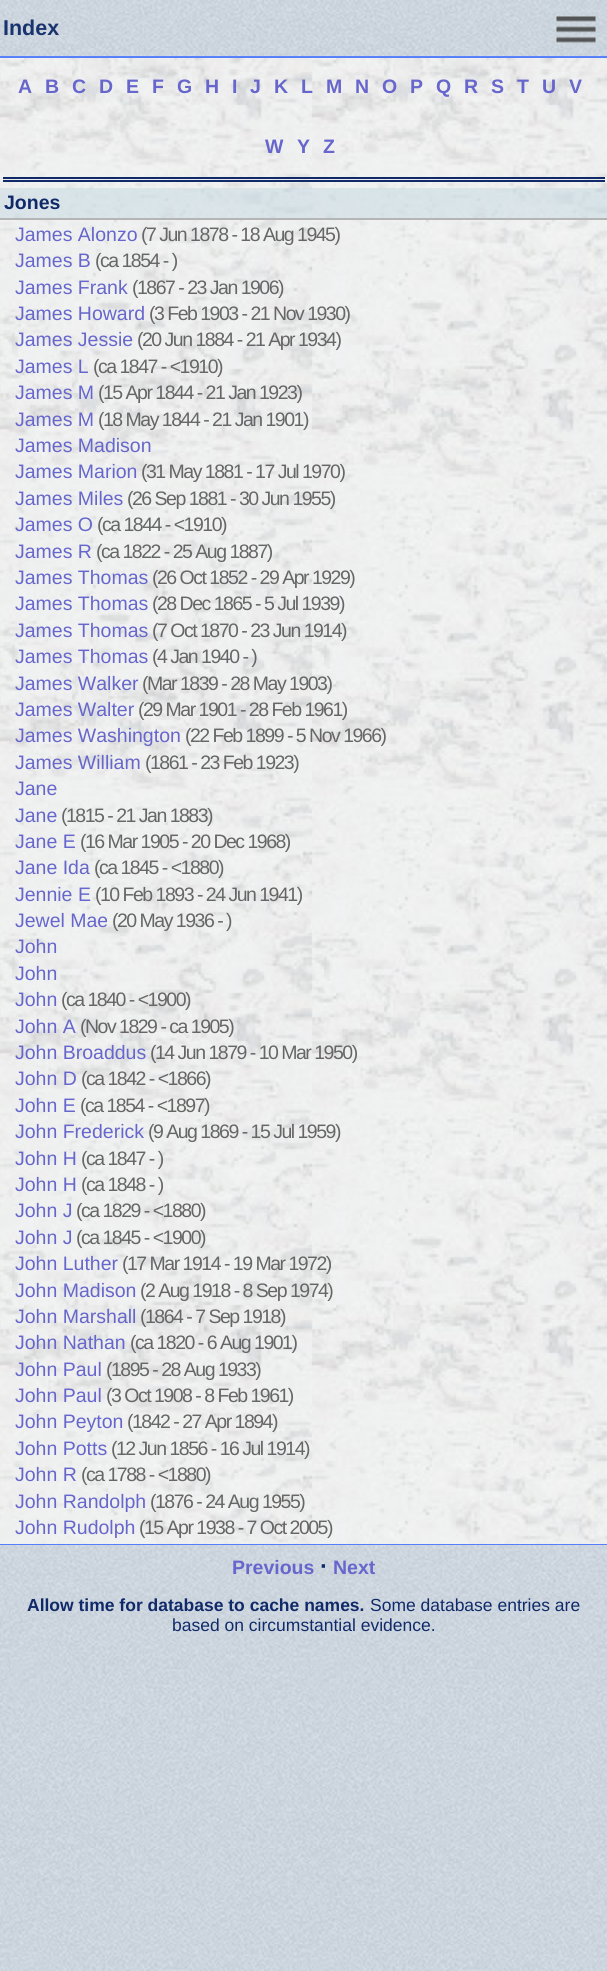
#include <cairo.h>
#include <math.h>
#include <stddef.h>


static void rgb(cairo_t *cr, int r, int g, int b)
{
	cairo_set_source_rgb(cr, r / 255.0, g / 255.0, b / 255.0);
}

static void face(cairo_t *cr, const char *family, double size, int italic, int bold)
{
	cairo_select_font_face(cr, family, italic ? CAIRO_FONT_SLANT_ITALIC : CAIRO_FONT_SLANT_NORMAL,
		bold ? CAIRO_FONT_WEIGHT_BOLD : CAIRO_FONT_WEIGHT_NORMAL);
	cairo_set_font_size(cr, size);
}

static void label(cairo_t *cr, double x, double y, const char *s)
{
	cairo_move_to(cr, x, y);
	cairo_show_text(cr, s);
}

static void tracked(cairo_t *cr, double x, double y, const char *s, double letter, double word)
{
	cairo_move_to(cr, x, y);
	while (*s) {
		char ch[5] = {0};
		int n = 0;
		do ch[n++] = *s++; while ((*s & 0xC0) == 0x80);
		cairo_show_text(cr, ch);
		cairo_rel_move_to(cr, letter + word * (*ch == ' '), 0);
	}
}

static void rect(cairo_t *cr, double x, double y, double w, double h)
{
	cairo_rectangle(cr, x, y, w, h);
	cairo_fill(cr);
}

static void image(cairo_t *cr, const char *path, double x, double y, double w, double h)
{
	cairo_surface_t *image = cairo_image_surface_create_from_png(path);
	cairo_save(cr);
	cairo_set_source_surface(cr, image, x, y);
	cairo_rectangle(cr, x, y, w, h);
	cairo_fill(cr);
	cairo_restore(cr);
	cairo_surface_destroy(image);
}

static void draw(cairo_t *cr) {
	rgb(cr, 255, 255, 255);
	cairo_paint(cr);
	image(cr, "image0.png", 0, 0, 607, 1971);
	image(cr, "image4.png", 0, 55, 607, 1489);
	rgb(cr, 86, 126, 252);
	rect(cr, 0, 56, 607, 2);
	image(cr, "image1.png", 0, 55, 607, 2);
	cairo_set_source_rgba(cr, 0.337, 0.494, 0.988, 0.95);
	rect(cr, 0, 56, 607, 1);
	face(cr, "Liberation Sans", 21.5, 0, 1);
	rgb(cr, 25, 51, 111);
	label(cr, 3, 35, "Index");
	image(cr, "image2.png", 541, 0, 66, 53);
	image(cr, "image3.png", 556, 16, 40, 27);
	rgb(cr, 86, 126, 252);
	rect(cr, 0, 1544, 607, 1);
	rgb(cr, 16, 42, 105);
	rect(cr, 3, 177, 602, 2);
	rect(cr, 3, 180, 602, 2);
	face(cr, "Liberation Sans", 19.5, 0, 1);
	rgb(cr, 102, 102, 204);
	tracked(cr, 18, 93, "A", 8, 0);
	tracked(cr, 45, 93, "B", 8, 0);
	tracked(cr, 72, 93, "C", 8, 0);
	tracked(cr, 99, 93, "D", 8, 0);
	tracked(cr, 126, 93, "E", 8, 0);
	tracked(cr, 152, 93, "F", 8, 0);
	tracked(cr, 177, 93, "G", 8, 0);
	tracked(cr, 205, 93, "H", 8, 0);
	tracked(cr, 232, 93, "I", 8, 0);
	tracked(cr, 250, 93, "J", 8, 0);
	tracked(cr, 274, 93, "K", 8, 0);
	tracked(cr, 301, 93, "L", 8, 0);
	tracked(cr, 326, 93, "M", 8, 0);
	tracked(cr, 355, 93, "N", 8, 0);
	tracked(cr, 382, 93, "O", 8, 0);
	tracked(cr, 410, 93, "P", 8, 0);
	tracked(cr, 436, 93, "Q", 8, 0);
	tracked(cr, 464, 93, "R", 8, 0);
	tracked(cr, 491, 93, "S", 8, 0);
	tracked(cr, 517, 93, "T", 8, 0);
	tracked(cr, 542, 93, "U", 8, 0);
	tracked(cr, 569, 93, "V", 8, 0);
	tracked(cr, 265, 153, "W", 8, 0);
	tracked(cr, 297, 153, "Y", 8, 0);
	tracked(cr, 323, 153, "Z", 8, 0);
	cairo_set_source_rgba(cr, 0.769, 0.851, 0.886, 0.5);
	rect(cr, 0, 188, 607, 30);
	rgb(cr, 181, 181, 181);
	rect(cr, 0, 218, 607, 2);
	rgb(cr, 16, 42, 105);
	label(cr, 4, 209, "Jones");
	face(cr, "Liberation Sans", 19.5, 0, 0);
	rgb(cr, 102, 102, 204);
	label(cr, 15, 241, "James Alonzo");
	rgb(cr, 102, 102, 102);
	tracked(cr, 141, 241, "(7 Jun 1878 - 18 Aug 1945)", -1.5, 0);
	rgb(cr, 102, 102, 204);
	label(cr, 15, 267, "James B");
	rgb(cr, 102, 102, 102);
	tracked(cr, 95, 267, "(ca 1854 - )", -1.5, 0);
	rgb(cr, 102, 102, 204);
	label(cr, 15, 294, "James Frank");
	rgb(cr, 102, 102, 102);
	tracked(cr, 132, 294, "(1867 - 23 Jan 1906)", -1.5, 0);
	rgb(cr, 102, 102, 204);
	label(cr, 15, 320, "James Howard");
	rgb(cr, 102, 102, 102);
	tracked(cr, 149, 320, "(3 Feb 1903 - 21 Nov 1930)", -1.5, 0);
	rgb(cr, 102, 102, 204);
	label(cr, 15, 346, "James Jessie");
	rgb(cr, 102, 102, 102);
	tracked(cr, 137, 346, "(20 Jun 1884 - 21 Apr 1934)", -1.5, 0);
	rgb(cr, 102, 102, 204);
	label(cr, 15, 373, "James L");
	rgb(cr, 102, 102, 102);
	tracked(cr, 93, 373, "(ca 1847 - <1910)", -1.5, 0);
	rgb(cr, 102, 102, 204);
	label(cr, 15, 399, "James M");
	rgb(cr, 102, 102, 102);
	tracked(cr, 98, 399, "(15 Apr 1844 - 21 Jan 1923)", -1.5, 0);
	rgb(cr, 102, 102, 204);
	label(cr, 15, 426, "James M");
	rgb(cr, 102, 102, 102);
	tracked(cr, 98, 426, "(18 May 1844 - 21 Jan 1901)", -1.5, 0);
	rgb(cr, 102, 102, 204);
	label(cr, 15, 452, "James Madison");
	label(cr, 15, 478, "James Marion");
	rgb(cr, 102, 102, 102);
	tracked(cr, 141, 478, "(31 May 1881 - 17 Jul 1970)", -1.5, 0);
	rgb(cr, 102, 102, 204);
	label(cr, 15, 505, "James Miles");
	rgb(cr, 102, 102, 102);
	tracked(cr, 127, 505, "(26 Sep 1881 - 30 Jun 1955)", -1.5, 0);
	rgb(cr, 102, 102, 204);
	label(cr, 15, 531, "James O");
	rgb(cr, 102, 102, 102);
	tracked(cr, 97, 531, "(ca 1844 - <1910)", -1.5, 0);
	rgb(cr, 102, 102, 204);
	label(cr, 15, 558, "James R");
	rgb(cr, 102, 102, 102);
	tracked(cr, 96, 558, "(ca 1822 - 25 Aug 1887)", -1.5, 0);
	rgb(cr, 102, 102, 204);
	label(cr, 15, 584, "James Thomas");
	rgb(cr, 102, 102, 102);
	tracked(cr, 152, 584, "(26 Oct 1852 - 29 Apr 1929)", -1.5, 0);
	rgb(cr, 102, 102, 204);
	label(cr, 15, 610, "James Thomas");
	rgb(cr, 102, 102, 102);
	tracked(cr, 152, 610, "(28 Dec 1865 - 5 Jul 1939)", -1.5, 0);
	rgb(cr, 102, 102, 204);
	label(cr, 15, 637, "James Thomas");
	rgb(cr, 102, 102, 102);
	tracked(cr, 152, 637, "(7 Oct 1870 - 23 Jun 1914)", -1.5, 0);
	rgb(cr, 102, 102, 204);
	label(cr, 15, 663, "James Thomas");
	rgb(cr, 102, 102, 102);
	tracked(cr, 152, 663, "(4 Jan 1940 - )", -1.5, 0);
	rgb(cr, 102, 102, 204);
	label(cr, 15, 690, "James Walker");
	rgb(cr, 102, 102, 102);
	tracked(cr, 142, 690, "(Mar 1839 - 28 May 1903)", -1.5, 0);
	rgb(cr, 102, 102, 204);
	label(cr, 15, 716, "James Walter");
	rgb(cr, 102, 102, 102);
	tracked(cr, 138, 716, "(29 Mar 1901 - 28 Feb 1961)", -1.5, 0);
	rgb(cr, 102, 102, 204);
	label(cr, 15, 742, "James Washington");
	rgb(cr, 102, 102, 102);
	tracked(cr, 185, 742, "(22 Feb 1899 - 5 Nov 1966)", -1.5, 0);
	rgb(cr, 102, 102, 204);
	label(cr, 15, 769, "James William");
	rgb(cr, 102, 102, 102);
	tracked(cr, 145, 769, "(1861 - 23 Feb 1923)", -1.5, 0);
	rgb(cr, 102, 102, 204);
	label(cr, 15, 795, "Jane");
	label(cr, 15, 822, "Jane");
	rgb(cr, 102, 102, 102);
	tracked(cr, 61, 822, "(1815 - 21 Jan 1883)", -1.5, 0);
	rgb(cr, 102, 102, 204);
	label(cr, 15, 848, "Jane E");
	rgb(cr, 102, 102, 102);
	tracked(cr, 80, 848, "(16 Mar 1905 - 20 Dec 1968)", -1.5, 0);
	rgb(cr, 102, 102, 204);
	label(cr, 15, 874, "Jane Ida");
	rgb(cr, 102, 102, 102);
	tracked(cr, 94, 874, "(ca 1845 - <1880)", -1.5, 0);
	rgb(cr, 102, 102, 204);
	label(cr, 15, 901, "Jennie E");
	rgb(cr, 102, 102, 102);
	tracked(cr, 95, 901, "(10 Feb 1893 - 24 Jun 1941)", -1.5, 0);
	rgb(cr, 102, 102, 204);
	label(cr, 15, 927, "Jewel Mae");
	rgb(cr, 102, 102, 102);
	tracked(cr, 112, 927, "(20 May 1936 - )", -1.5, 0);
	rgb(cr, 102, 102, 204);
	label(cr, 15, 953, "John");
	label(cr, 15, 980, "John");
	label(cr, 15, 1006, "John");
	rgb(cr, 102, 102, 102);
	tracked(cr, 61, 1006, "(ca 1840 - <1900)", -1.5, 0);
	rgb(cr, 102, 102, 204);
	label(cr, 15, 1033, "John A");
	rgb(cr, 102, 102, 102);
	tracked(cr, 80, 1033, "(Nov 1829 - ca 1905)", -1.5, 0);
	rgb(cr, 102, 102, 204);
	label(cr, 15, 1059, "John Broaddus");
	rgb(cr, 102, 102, 102);
	tracked(cr, 150, 1059, "(14 Jun 1879 - 10 Mar 1950)", -1.5, 0);
	rgb(cr, 102, 102, 204);
	label(cr, 15, 1085, "John D");
	rgb(cr, 102, 102, 102);
	tracked(cr, 81, 1085, "(ca 1842 - <1866)", -1.5, 0);
	rgb(cr, 102, 102, 204);
	label(cr, 15, 1112, "John E");
	rgb(cr, 102, 102, 102);
	tracked(cr, 80, 1112, "(ca 1854 - <1897)", -1.5, 0);
	rgb(cr, 102, 102, 204);
	label(cr, 15, 1138, "John Frederick");
	rgb(cr, 102, 102, 102);
	tracked(cr, 148, 1138, "(9 Aug 1869 - 15 Jul 1959)", -1.5, 0);
	rgb(cr, 102, 102, 204);
	label(cr, 15, 1165, "John H");
	rgb(cr, 102, 102, 102);
	tracked(cr, 81, 1165, "(ca 1847 - )", -1.5, 0);
	rgb(cr, 102, 102, 204);
	label(cr, 15, 1191, "John H");
	rgb(cr, 102, 102, 102);
	tracked(cr, 81, 1191, "(ca 1848 - )", -1.5, 0);
	rgb(cr, 102, 102, 204);
	label(cr, 15, 1217, "John J");
	rgb(cr, 102, 102, 102);
	tracked(cr, 76, 1217, "(ca 1829 - <1880)", -1.5, 0);
	rgb(cr, 102, 102, 204);
	label(cr, 15, 1244, "John J");
	rgb(cr, 102, 102, 102);
	tracked(cr, 76, 1244, "(ca 1845 - <1900)", -1.5, 0);
	rgb(cr, 102, 102, 204);
	label(cr, 15, 1270, "John Luther");
	rgb(cr, 102, 102, 102);
	tracked(cr, 122, 1270, "(17 Mar 1914 - 19 Mar 1972)", -1.5, 0);
	rgb(cr, 102, 102, 204);
	label(cr, 15, 1297, "John Madison");
	rgb(cr, 102, 102, 102);
	tracked(cr, 140, 1297, "(2 Aug 1918 - 8 Sep 1974)", -1.5, 0);
	rgb(cr, 102, 102, 204);
	label(cr, 15, 1323, "John Marshall");
	rgb(cr, 102, 102, 102);
	tracked(cr, 140, 1323, "(1864 - 7 Sep 1918)", -1.5, 0);
	rgb(cr, 102, 102, 204);
	label(cr, 15, 1349, "John Nathan");
	rgb(cr, 102, 102, 102);
	tracked(cr, 130, 1349, "(ca 1820 - 6 Aug 1901)", -1.5, 0);
	rgb(cr, 102, 102, 204);
	label(cr, 15, 1376, "John Paul");
	rgb(cr, 102, 102, 102);
	tracked(cr, 106, 1376, "(1895 - 28 Aug 1933)", -1.5, 0);
	rgb(cr, 102, 102, 204);
	label(cr, 15, 1402, "John Paul");
	rgb(cr, 102, 102, 102);
	tracked(cr, 106, 1402, "(3 Oct 1908 - 8 Feb 1961)", -1.5, 0);
	rgb(cr, 102, 102, 204);
	label(cr, 15, 1428, "John Peyton");
	rgb(cr, 102, 102, 102);
	tracked(cr, 127, 1428, "(1842 - 27 Apr 1894)", -1.5, 0);
	rgb(cr, 102, 102, 204);
	label(cr, 15, 1455, "John Potts");
	rgb(cr, 102, 102, 102);
	tracked(cr, 111, 1455, "(12 Jun 1856 - 16 Jul 1914)", -1.5, 0);
	rgb(cr, 102, 102, 204);
	label(cr, 15, 1481, "John R");
	rgb(cr, 102, 102, 102);
	tracked(cr, 81, 1481, "(ca 1788 - <1880)", -1.5, 0);
	rgb(cr, 102, 102, 204);
	label(cr, 15, 1508, "John Randolph");
	rgb(cr, 102, 102, 102);
	tracked(cr, 150, 1508, "(1876 - 24 Aug 1955)", -1.5, 0);
	rgb(cr, 102, 102, 204);
	label(cr, 15, 1534, "John Rudolph");
	rgb(cr, 102, 102, 102);
	tracked(cr, 139, 1534, "(15 Apr 1938 - 7 Oct 2005)", -1.5, 0);
	image(cr, "image5.png", 0, 1545, 607, 42);
	face(cr, "Liberation Sans", 19.5, 0, 1);
	rgb(cr, 102, 102, 204);
	label(cr, 232, 1574, "Previous");
	face(cr, "Liberation Sans", 24, 0, 1);
	rgb(cr, 16, 42, 105);
	label(cr, 320, 1574, "·");
	face(cr, "Liberation Sans", 19.5, 0, 1);
	rgb(cr, 102, 102, 204);
	label(cr, 333, 1574, "Next");
	face(cr, "Liberation Sans", 17.5, 0, 1);
	rgb(cr, 16, 42, 105);
	label(cr, 27, 1611, "Allow time for database to cache names.");
	face(cr, "Liberation Sans", 17.5, 0, 0);
	label(cr, 370, 1611, "Some database entries are");
	label(cr, 172, 1631, "based on circumstantial evidence.");
}

int main(void) {
	cairo_surface_t *surface = cairo_image_surface_create(CAIRO_FORMAT_RGB24, 607, 1971);
	cairo_t *cr = cairo_create(surface);
	cairo_font_options_t *options = cairo_font_options_create();
	cairo_font_options_set_hint_metrics(options, CAIRO_HINT_METRICS_OFF);
	cairo_font_options_set_hint_style(options, CAIRO_HINT_STYLE_NONE);
	cairo_set_font_options(cr, options);
	cairo_set_miter_limit(cr, 4);
	draw(cr);
	cairo_surface_write_to_png(surface, "render.png");
	cairo_font_options_destroy(options);
	cairo_destroy(cr);
	cairo_surface_destroy(surface);
	return 0;
}
